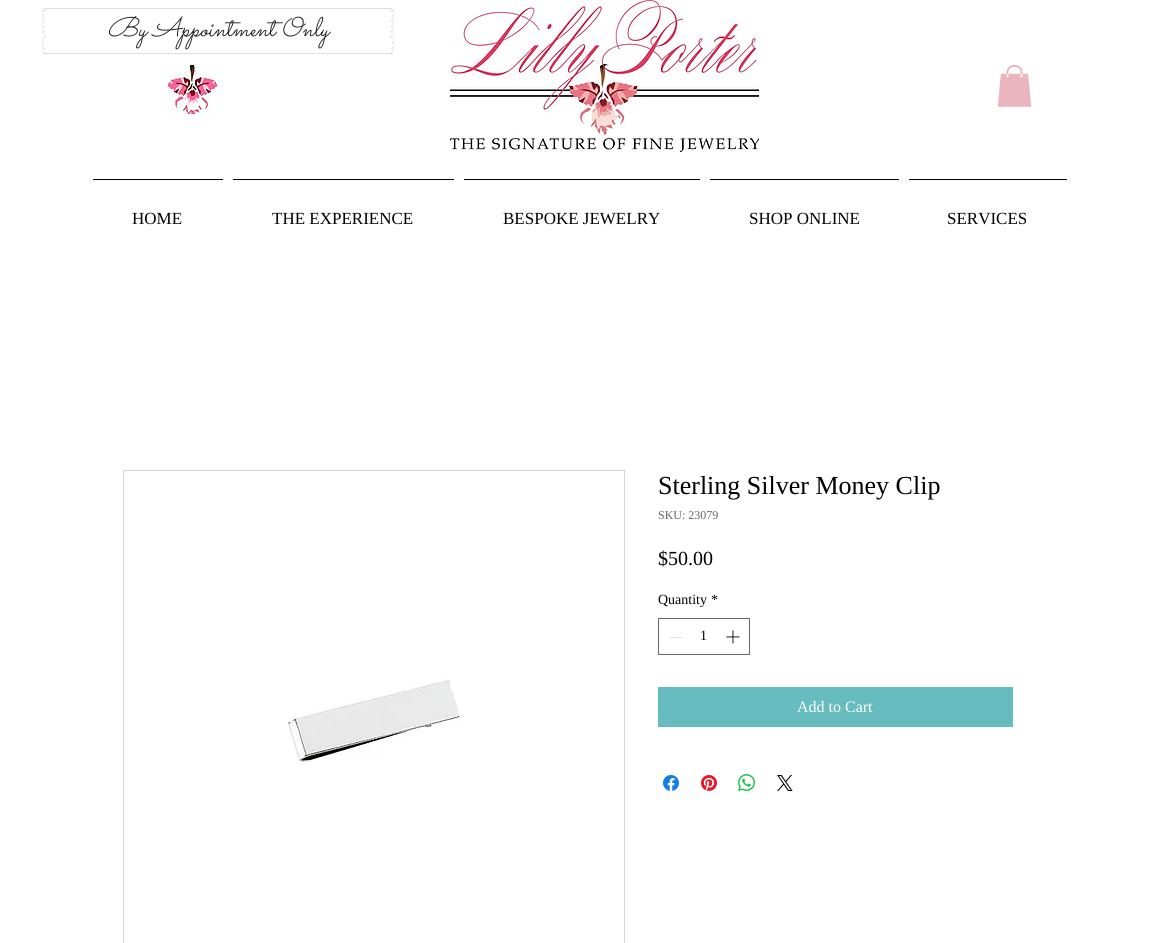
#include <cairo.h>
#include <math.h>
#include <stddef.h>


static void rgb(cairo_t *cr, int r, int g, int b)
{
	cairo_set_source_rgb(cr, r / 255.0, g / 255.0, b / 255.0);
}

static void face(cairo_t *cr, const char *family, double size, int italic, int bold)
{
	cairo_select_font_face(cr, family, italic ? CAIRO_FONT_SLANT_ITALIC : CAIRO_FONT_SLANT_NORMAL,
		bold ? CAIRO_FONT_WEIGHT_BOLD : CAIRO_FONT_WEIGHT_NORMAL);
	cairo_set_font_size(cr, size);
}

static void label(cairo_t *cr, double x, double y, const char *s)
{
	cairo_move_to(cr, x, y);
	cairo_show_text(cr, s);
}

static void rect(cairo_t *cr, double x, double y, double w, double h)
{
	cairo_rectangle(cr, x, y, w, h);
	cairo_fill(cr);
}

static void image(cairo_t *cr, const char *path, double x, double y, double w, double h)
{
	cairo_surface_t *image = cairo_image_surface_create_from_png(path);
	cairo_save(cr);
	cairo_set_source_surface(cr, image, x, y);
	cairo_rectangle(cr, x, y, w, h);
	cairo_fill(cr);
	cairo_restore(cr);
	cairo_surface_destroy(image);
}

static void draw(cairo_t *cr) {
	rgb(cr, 255, 255, 255);
	cairo_paint(cr);
	image(cr, "image0.png", 41, 8, 6, 46);
	rgb(cr, 220, 220, 220);
	rect(cr, 44, 8, 348, 1);
	cairo_set_source_rgba(cr, 0, 0, 0, 0.13);
	rect(cr, 44, 53, 348, 1);
	face(cr, "Sacramento", 27, 1, 0);
	rgb(cr, 35, 35, 35);
	label(cr, 107, 36, "By Appointment Only");
	image(cr, "image1.png", 389, 8, 6, 46);
	image(cr, "image2.png", 450, 0, 309, 152);
	image(cr, "image3.png", 168, 65, 50, 49);
	image(cr, "image4.png", 997, 65, 35, 42);
	rgb(cr, 0, 0, 0);
	rect(cr, 93, 179, 130, 1);
	face(cr, "Liberation Serif", 17, 0, 0);
	label(cr, 132, 224, "HOME");
	rect(cr, 233, 179, 221, 1);
	label(cr, 272, 224, "THE EXPERIENCE");
	rect(cr, 464, 179, 236, 1);
	label(cr, 503, 224, "BESPOKE JEWELRY");
	rect(cr, 710, 179, 189, 1);
	label(cr, 749, 224, "SHOP ONLINE");
	rect(cr, 909, 179, 158, 1);
	label(cr, 947, 224, "SERVICES");
	cairo_rectangle(cr, 123.5, 470.5, 501, 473);
	rgb(cr, 212, 212, 212);
	cairo_set_line_width(cr, 1);
	cairo_stroke(cr);
	image(cr, "image5.png", 288, 679, 172, 84);
	face(cr, "Liberation Serif", 26, 0, 0);
	rgb(cr, 0, 0, 0);
	label(cr, 658, 494, "Sterling Silver Money Clip");
	face(cr, "Liberation Serif", 12, 0, 0);
	rgb(cr, 102, 102, 102);
	label(cr, 658, 519, "SKU: 23079");
	face(cr, "Liberation Serif", 20, 0, 0);
	rgb(cr, 0, 0, 0);
	label(cr, 658, 565, "$50.00");
	face(cr, "Liberation Serif", 14, 0, 0);
	label(cr, 658, 604, "Quantity");
	label(cr, 711, 604, "*");
	cairo_rectangle(cr, 658.5, 618.5, 91, 36);
	rgb(cr, 102, 102, 102);
	cairo_stroke(cr);
	rgb(cr, 227, 227, 227);
	rect(cr, 670, 637, 13, 1);
	rgb(cr, 0, 0, 0);
	label(cr, 700, 640, "1");
	image(cr, "image6.png", 726, 630, 14, 14);
	rgb(cr, 103, 188, 191);
	rect(cr, 658, 687, 355, 40);
	face(cr, "Liberation Serif", 16, 0, 0);
	rgb(cr, 255, 255, 255);
	label(cr, 797, 712, "Add to Cart");
	image(cr, "image7.png", 663, 775, 16, 16);
	image(cr, "image8.png", 701, 775, 16, 16);
	image(cr, "image9.png", 738, 774, 17, 17);
	image(cr, "image10.png", 777, 775, 16, 16);
}

int main(void) {
	cairo_surface_t *surface = cairo_image_surface_create(CAIRO_FORMAT_RGB24, 1163, 943);
	cairo_t *cr = cairo_create(surface);
	cairo_font_options_t *options = cairo_font_options_create();
	cairo_font_options_set_hint_metrics(options, CAIRO_HINT_METRICS_OFF);
	cairo_font_options_set_hint_style(options, CAIRO_HINT_STYLE_NONE);
	cairo_set_font_options(cr, options);
	cairo_set_miter_limit(cr, 4);
	draw(cr);
	cairo_surface_write_to_png(surface, "render.png");
	cairo_font_options_destroy(options);
	cairo_destroy(cr);
	cairo_surface_destroy(surface);
	return 0;
}
